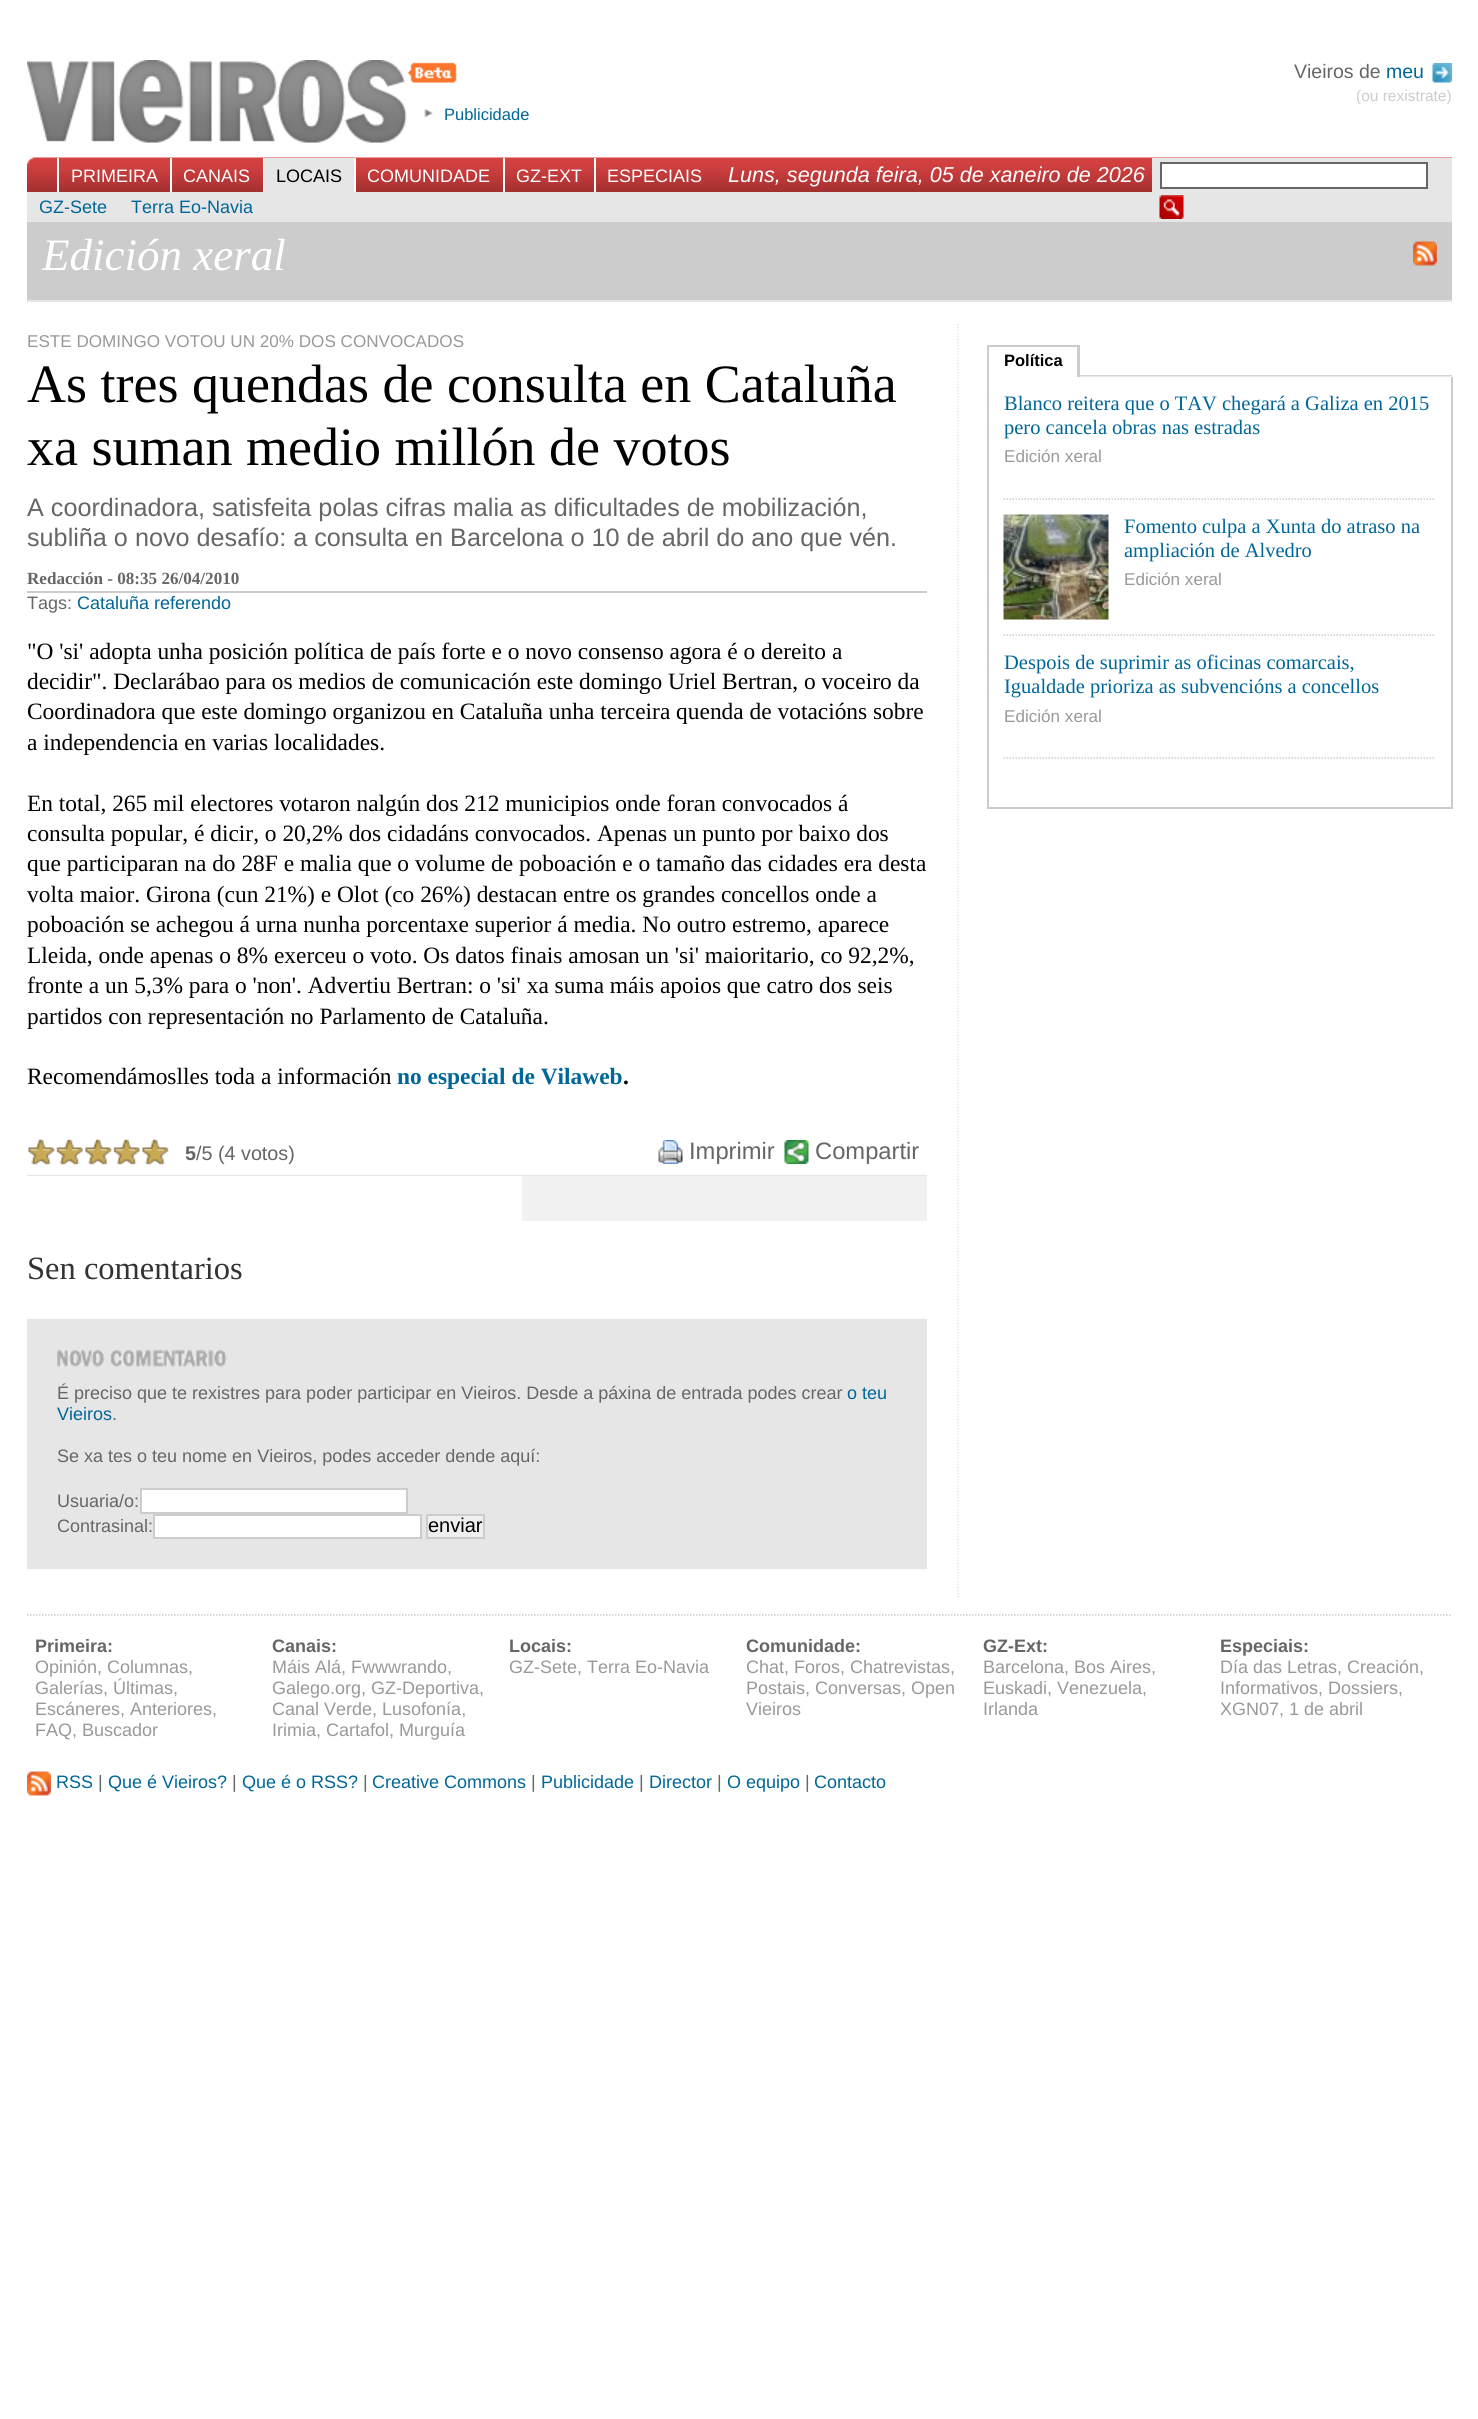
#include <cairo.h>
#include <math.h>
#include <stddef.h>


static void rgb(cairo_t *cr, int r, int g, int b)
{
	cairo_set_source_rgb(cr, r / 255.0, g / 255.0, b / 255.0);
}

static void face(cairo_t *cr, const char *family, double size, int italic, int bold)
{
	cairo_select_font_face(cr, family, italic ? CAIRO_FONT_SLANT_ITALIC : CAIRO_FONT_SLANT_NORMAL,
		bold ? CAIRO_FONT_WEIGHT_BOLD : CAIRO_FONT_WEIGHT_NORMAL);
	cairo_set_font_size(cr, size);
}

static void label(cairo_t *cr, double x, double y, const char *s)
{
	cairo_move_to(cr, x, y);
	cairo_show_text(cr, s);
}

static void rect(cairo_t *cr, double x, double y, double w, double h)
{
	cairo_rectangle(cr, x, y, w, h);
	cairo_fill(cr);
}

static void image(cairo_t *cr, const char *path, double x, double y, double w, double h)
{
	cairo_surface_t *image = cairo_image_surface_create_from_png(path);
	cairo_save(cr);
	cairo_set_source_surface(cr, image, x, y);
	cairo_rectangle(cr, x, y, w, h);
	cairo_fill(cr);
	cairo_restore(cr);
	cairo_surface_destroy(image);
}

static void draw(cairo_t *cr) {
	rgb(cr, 255, 255, 255);
	cairo_paint(cr);
	image(cr, "image0.png", 27, 60, 430, 83);
	face(cr, "Liberation Sans", 19.5, 0, 0);
	rgb(cr, 102, 102, 102);
	label(cr, 1294, 78, "Vieiros de");
	rgb(cr, 0, 102, 153);
	label(cr, 1386, 78, "meu");
	image(cr, "image1.png", 1432, 63, 20, 20);
	face(cr, "Liberation Sans", 15.5, 0, 0);
	rgb(cr, 204, 204, 204);
	label(cr, 1356, 101, "(ou rexistrate)");
	image(cr, "image2.png", 424, 109, 9, 9);
	face(cr, "Liberation Sans", 16.5, 0, 0);
	rgb(cr, 0, 102, 153);
	label(cr, 444, 120, "Publicidade");
	image(cr, "image3.png", 27, 157, 1425, 35);
	rgb(cr, 255, 255, 255);
	rect(cr, 57, 158, 2, 34);
	face(cr, "Liberation Sans", 18, 0, 0);
	label(cr, 71, 182, "PRIMEIRA");
	rect(cr, 170, 158, 2, 34);
	label(cr, 183, 182, "CANAIS");
	rect(cr, 263, 158, 1, 34);
	rgb(cr, 230, 230, 230);
	rect(cr, 264, 158, 90, 34);
	rgb(cr, 0, 0, 0);
	label(cr, 276, 182, "LOCAIS");
	rgb(cr, 255, 255, 255);
	rect(cr, 354, 158, 2, 34);
	label(cr, 367, 182, "COMUNIDADE");
	rect(cr, 503, 158, 2, 34);
	label(cr, 516, 182, "GZ-EXT");
	rect(cr, 594, 158, 2, 34);
	label(cr, 607, 182, "ESPECIAIS");
	face(cr, "Liberation Sans", 21.6, 1, 0);
	label(cr, 728, 182, "Luns, segunda feira, 05 de xaneiro de 2026");
	rgb(cr, 230, 230, 230);
	rect(cr, 1152, 158, 300, 34);
	rgb(cr, 255, 255, 255);
	cairo_rectangle(cr, 1161, 163, 266, 25);
	cairo_fill_preserve(cr);
	rgb(cr, 102, 102, 102);
	cairo_stroke(cr);
	rgb(cr, 230, 230, 230);
	rect(cr, 27, 192, 1425, 30);
	image(cr, "image4.png", 1159, 195, 25, 24);
	face(cr, "Liberation Sans", 18, 0, 0);
	rgb(cr, 0, 102, 153);
	label(cr, 39, 213, "GZ-Sete");
	label(cr, 131, 213, "Terra Eo-Navia");
	rgb(cr, 204, 204, 204);
	rect(cr, 27, 222, 1425, 78);
	rgb(cr, 230, 230, 230);
	rect(cr, 27, 300, 1425, 2);
	face(cr, "Liberation Serif", 45, 1, 0);
	rgb(cr, 255, 255, 255);
	label(cr, 42, 270, "Edición xeral");
	image(cr, "image5.png", 1413, 241, 24, 25);
	cairo_new_path(cr);
	cairo_move_to(cr, 958, 324);
	cairo_line_to(cr, 958, 1599);
	rgb(cr, 230, 230, 230);
	cairo_set_line_width(cr, 1.5);
	cairo_set_dash(cr, (double[]){1.5, 1.5}, 2, 0);
	cairo_stroke(cr);
	face(cr, "Liberation Sans", 17.1, 0, 0);
	rgb(cr, 153, 153, 153);
	label(cr, 27, 347, "ESTE DOMINGO VOTOU UN 20% DOS CONVOCADOS");
	face(cr, "Liberation Serif", 54, 0, 0);
	rgb(cr, 0, 0, 0);
	label(cr, 27, 402, "As tres quendas de consulta en Cataluña");
	label(cr, 27, 465, "xa suman medio millón de votos");
	face(cr, "Liberation Sans", 25.2, 0, 0);
	rgb(cr, 102, 102, 102);
	label(cr, 27, 516, "A coordinadora, satisfeita polas cifras malia as dificultades de mobilización,");
	label(cr, 27, 546, "subliña o novo desafío: a consulta en Barcelona o 10 de abril do ano que vén.");
	rgb(cr, 204, 204, 204);
	rect(cr, 27, 591, 900, 2);
	face(cr, "Liberation Serif", 17.1, 0, 1);
	rgb(cr, 102, 102, 102);
	label(cr, 27, 584, "Redacción - 08:35 26/04/2010");
	face(cr, "Liberation Sans", 18, 0, 0);
	label(cr, 27, 609, "Tags:");
	rgb(cr, 0, 102, 153);
	label(cr, 77, 609, "Cataluña referendo");
	face(cr, "Liberation Serif", 23.4, 0, 0);
	rgb(cr, 0, 0, 0);
	label(cr, 27, 659, "\"O 'si' adopta unha posición política de país forte e o novo consenso agora é o dereito a");
	label(cr, 27, 689, "decidir\". Declarábao para os medios de comunicación este domingo Uriel Bertran, o voceiro da");
	label(cr, 27, 719, "Coordinadora que este domingo organizou en Cataluña unha terceira quenda de votacións sobre");
	label(cr, 27, 750, "a independencia en varias localidades.");
	label(cr, 27, 811, "En total, 265 mil electores votaron nalgún dos 212 municipios onde foran convocados á");
	label(cr, 27, 841, "consulta popular, é dicir, o 20,2% dos cidadáns convocados. Apenas un punto por baixo dos");
	label(cr, 27, 871, "que participaran na do 28F e malia que o volume de poboación e o tamaño das cidades era desta");
	label(cr, 27, 902, "volta maior. Girona (cun 21%) e Olot (co 26%) destacan entre os grandes concellos onde a");
	label(cr, 27, 932, "poboación se achegou á urna nunha porcentaxe superior á media. No outro estremo, aparece");
	label(cr, 27, 963, "Lleida, onde apenas o 8% exerceu o voto. Os datos finais amosan un 'si' maioritario, co 92,2%,");
	label(cr, 27, 993, "fronte a un 5,3% para o 'non'. Advertiu Bertran: o 'si' xa suma máis apoios que catro dos seis");
	label(cr, 27, 1024, "partidos con representación no Parlamento de Cataluña.");
	label(cr, 27, 1084, "Recomendámoslles toda a información");
	face(cr, "Liberation Serif", 23.4, 0, 1);
	rgb(cr, 0, 102, 153);
	label(cr, 397, 1084, "no especial de Vilaweb");
	rgb(cr, 0, 0, 0);
	label(cr, 623, 1084, ".");
	rgb(cr, 230, 230, 230);
	rect(cr, 27, 1175, 900, 1);
	image(cr, "image6.png", 28, 1139, 141, 26);
	face(cr, "Liberation Sans", 19.75, 0, 1);
	rgb(cr, 102, 102, 102);
	label(cr, 185, 1160, "5");
	face(cr, "Liberation Sans", 19.75, 0, 0);
	label(cr, 196, 1160, "/5 (4 votos)");
	image(cr, "image7.png", 658, 1140, 25, 24);
	face(cr, "Liberation Sans", 23.75, 0, 0);
	label(cr, 689, 1159, "Imprimir");
	image(cr, "image8.png", 784, 1140, 25, 24);
	label(cr, 815, 1159, "Compartir");
	image(cr, "image9.png", 27, 1176, 900, 45);
	face(cr, "Liberation Serif", 32.5, 0, 0);
	rgb(cr, 51, 51, 51);
	label(cr, 27, 1279, "Sen comentarios");
	rgb(cr, 230, 230, 230);
	rect(cr, 27, 1319, 900, 250);
	image(cr, "image10.png", 57, 1349, 170, 18);
	face(cr, "Liberation Sans", 18, 0, 0);
	rgb(cr, 102, 102, 102);
	label(cr, 57, 1399, "É preciso que te rexistres para poder participar en Vieiros. Desde a páxina de entrada podes crear");
	rgb(cr, 0, 102, 153);
	label(cr, 847, 1399, "o teu");
	label(cr, 57, 1420, "Vieiros");
	rgb(cr, 102, 102, 102);
	label(cr, 112, 1420, ".");
	label(cr, 57, 1462, "Se xa tes o teu nome en Vieiros, podes acceder dende aquí:");
	label(cr, 57, 1507, "Usuaria/o:");
	rgb(cr, 255, 255, 255);
	cairo_rectangle(cr, 141, 1489, 266, 24);
	cairo_fill_preserve(cr);
	rgb(cr, 204, 204, 204);
	cairo_set_line_width(cr, 2);
	cairo_set_dash(cr, NULL, 0, 0);
	cairo_stroke(cr);
	rgb(cr, 102, 102, 102);
	label(cr, 57, 1532, "Contrasinal:");
	rgb(cr, 255, 255, 255);
	cairo_rectangle(cr, 154, 1515, 267, 23);
	cairo_fill_preserve(cr);
	rgb(cr, 204, 204, 204);
	cairo_stroke(cr);
	rgb(cr, 239, 239, 239);
	cairo_rectangle(cr, 427, 1515, 57, 23);
	cairo_fill_preserve(cr);
	rgb(cr, 204, 204, 204);
	cairo_stroke(cr);
	face(cr, "Liberation Sans", 20, 0, 0);
	rgb(cr, 0, 0, 0);
	label(cr, 428, 1532, "enviar");
	image(cr, "image11.png", 1080, 375, 372, 2);
	rgb(cr, 204, 204, 204);
	rect(cr, 987, 345, 93, 2);
	rect(cr, 1077, 345, 3, 32);
	rect(cr, 987, 345, 2, 32);
	face(cr, "Liberation Sans", 16.5, 0, 1);
	rgb(cr, 0, 0, 0);
	label(cr, 1004, 366, "Política");
	rgb(cr, 204, 204, 204);
	rect(cr, 1451, 377, 2, 432);
	rect(cr, 987, 807, 465, 2);
	rect(cr, 987, 377, 2, 432);
	cairo_new_path(cr);
	cairo_move_to(cr, 1003.5, 499);
	cairo_line_to(cr, 1435.5, 499);
	cairo_set_line_width(cr, 1.5);
	cairo_set_dash(cr, (double[]){1.5, 1.5}, 2, 0);
	cairo_stroke(cr);
	face(cr, "Liberation Serif", 20.5, 0, 0);
	rgb(cr, 0, 102, 153);
	label(cr, 1004, 410, "Blanco reitera que o TAV chegará a Galiza en 2015");
	label(cr, 1004, 434, "pero cancela obras nas estradas");
	face(cr, "Liberation Sans", 17.1, 0, 0);
	rgb(cr, 153, 153, 153);
	label(cr, 1004, 462, "Edición xeral");
	cairo_new_path(cr);
	cairo_move_to(cr, 1003.5, 635);
	cairo_line_to(cr, 1435.5, 635);
	rgb(cr, 204, 204, 204);
	cairo_stroke(cr);
	image(cr, "image12.png", 1003, 514, 106, 106);
	face(cr, "Liberation Serif", 20.5, 0, 0);
	rgb(cr, 0, 102, 153);
	label(cr, 1124, 533, "Fomento culpa a Xunta do atraso na");
	label(cr, 1124, 557, "ampliación de Alvedro");
	face(cr, "Liberation Sans", 17.1, 0, 0);
	rgb(cr, 153, 153, 153);
	label(cr, 1124, 585, "Edición xeral");
	cairo_new_path(cr);
	cairo_move_to(cr, 1003.5, 758);
	cairo_line_to(cr, 1435.5, 758);
	rgb(cr, 204, 204, 204);
	cairo_stroke(cr);
	face(cr, "Liberation Serif", 20.5, 0, 0);
	rgb(cr, 0, 102, 153);
	label(cr, 1004, 669, "Despois de suprimir as oficinas comarcais,");
	label(cr, 1004, 693, "Igualdade prioriza as subvencións a concellos");
	face(cr, "Liberation Sans", 17.1, 0, 0);
	rgb(cr, 153, 153, 153);
	label(cr, 1004, 722, "Edición xeral");
	cairo_new_path(cr);
	cairo_move_to(cr, 27, 1615);
	cairo_line_to(cr, 1452, 1615);
	rgb(cr, 204, 204, 204);
	cairo_stroke(cr);
	face(cr, "Liberation Sans", 18, 0, 1);
	rgb(cr, 102, 102, 102);
	label(cr, 35, 1652, "Primeira:");
	face(cr, "Liberation Sans", 18, 0, 0);
	rgb(cr, 153, 153, 153);
	label(cr, 35, 1673, "Opinión, Columnas,");
	label(cr, 35, 1694, "Galerías, Últimas,");
	label(cr, 35, 1715, "Escáneres, Anteriores,");
	label(cr, 35, 1736, "FAQ, Buscador");
	face(cr, "Liberation Sans", 18, 0, 1);
	rgb(cr, 102, 102, 102);
	label(cr, 272, 1652, "Canais:");
	face(cr, "Liberation Sans", 18, 0, 0);
	rgb(cr, 153, 153, 153);
	label(cr, 272, 1673, "Máis Alá, Fwwwrando,");
	label(cr, 272, 1694, "Galego.org, GZ-Deportiva,");
	label(cr, 272, 1715, "Canal Verde, Lusofonía,");
	label(cr, 272, 1736, "Irimia, Cartafol, Murguía");
	face(cr, "Liberation Sans", 18, 0, 1);
	rgb(cr, 102, 102, 102);
	label(cr, 509, 1652, "Locais:");
	face(cr, "Liberation Sans", 18, 0, 0);
	rgb(cr, 153, 153, 153);
	label(cr, 509, 1673, "GZ-Sete, Terra Eo-Navia");
	face(cr, "Liberation Sans", 18, 0, 1);
	rgb(cr, 102, 102, 102);
	label(cr, 746, 1652, "Comunidade:");
	face(cr, "Liberation Sans", 18, 0, 0);
	rgb(cr, 153, 153, 153);
	label(cr, 746, 1673, "Chat, Foros, Chatrevistas,");
	label(cr, 746, 1694, "Postais, Conversas, Open");
	label(cr, 746, 1715, "Vieiros");
	face(cr, "Liberation Sans", 18, 0, 1);
	rgb(cr, 102, 102, 102);
	label(cr, 983, 1652, "GZ-Ext:");
	face(cr, "Liberation Sans", 18, 0, 0);
	rgb(cr, 153, 153, 153);
	label(cr, 983, 1673, "Barcelona, Bos Aires,");
	label(cr, 983, 1694, "Euskadi, Venezuela,");
	label(cr, 983, 1715, "Irlanda");
	face(cr, "Liberation Sans", 18, 0, 1);
	rgb(cr, 102, 102, 102);
	label(cr, 1220, 1652, "Especiais:");
	face(cr, "Liberation Sans", 18, 0, 0);
	rgb(cr, 153, 153, 153);
	label(cr, 1220, 1673, "Día das Letras, Creación,");
	label(cr, 1220, 1694, "Informativos, Dossiers,");
	label(cr, 1220, 1715, "XGN07, 1 de abril");
	image(cr, "image13.png", 27, 1771, 24, 25);
	rgb(cr, 0, 102, 153);
	label(cr, 56, 1788, "RSS");
	rgb(cr, 102, 102, 102);
	label(cr, 98, 1788, "|");
	rgb(cr, 0, 102, 153);
	label(cr, 108, 1788, "Que é Vieiros?");
	rgb(cr, 102, 102, 102);
	label(cr, 232, 1788, "|");
	rgb(cr, 0, 102, 153);
	label(cr, 242, 1788, "Que é o RSS?");
	rgb(cr, 102, 102, 102);
	label(cr, 363, 1788, "|");
	rgb(cr, 0, 102, 153);
	label(cr, 372, 1788, "Creative Commons");
	rgb(cr, 102, 102, 102);
	label(cr, 531, 1788, "|");
	rgb(cr, 0, 102, 153);
	label(cr, 541, 1788, "Publicidade");
	rgb(cr, 102, 102, 102);
	label(cr, 639, 1788, "|");
	rgb(cr, 0, 102, 153);
	label(cr, 649, 1788, "Director");
	rgb(cr, 102, 102, 102);
	label(cr, 717, 1788, "|");
	rgb(cr, 0, 102, 153);
	label(cr, 727, 1788, "O equipo");
	rgb(cr, 102, 102, 102);
	label(cr, 805, 1788, "|");
	rgb(cr, 0, 102, 153);
	label(cr, 814, 1788, "Contacto");
}

int main(void) {
	cairo_surface_t *surface = cairo_image_surface_create(CAIRO_FORMAT_RGB24, 1478, 2419);
	cairo_t *cr = cairo_create(surface);
	cairo_font_options_t *options = cairo_font_options_create();
	cairo_font_options_set_hint_metrics(options, CAIRO_HINT_METRICS_OFF);
	cairo_font_options_set_hint_style(options, CAIRO_HINT_STYLE_NONE);
	cairo_set_font_options(cr, options);
	cairo_set_miter_limit(cr, 4);
	draw(cr);
	cairo_surface_write_to_png(surface, "render.png");
	cairo_font_options_destroy(options);
	cairo_destroy(cr);
	cairo_surface_destroy(surface);
	return 0;
}
